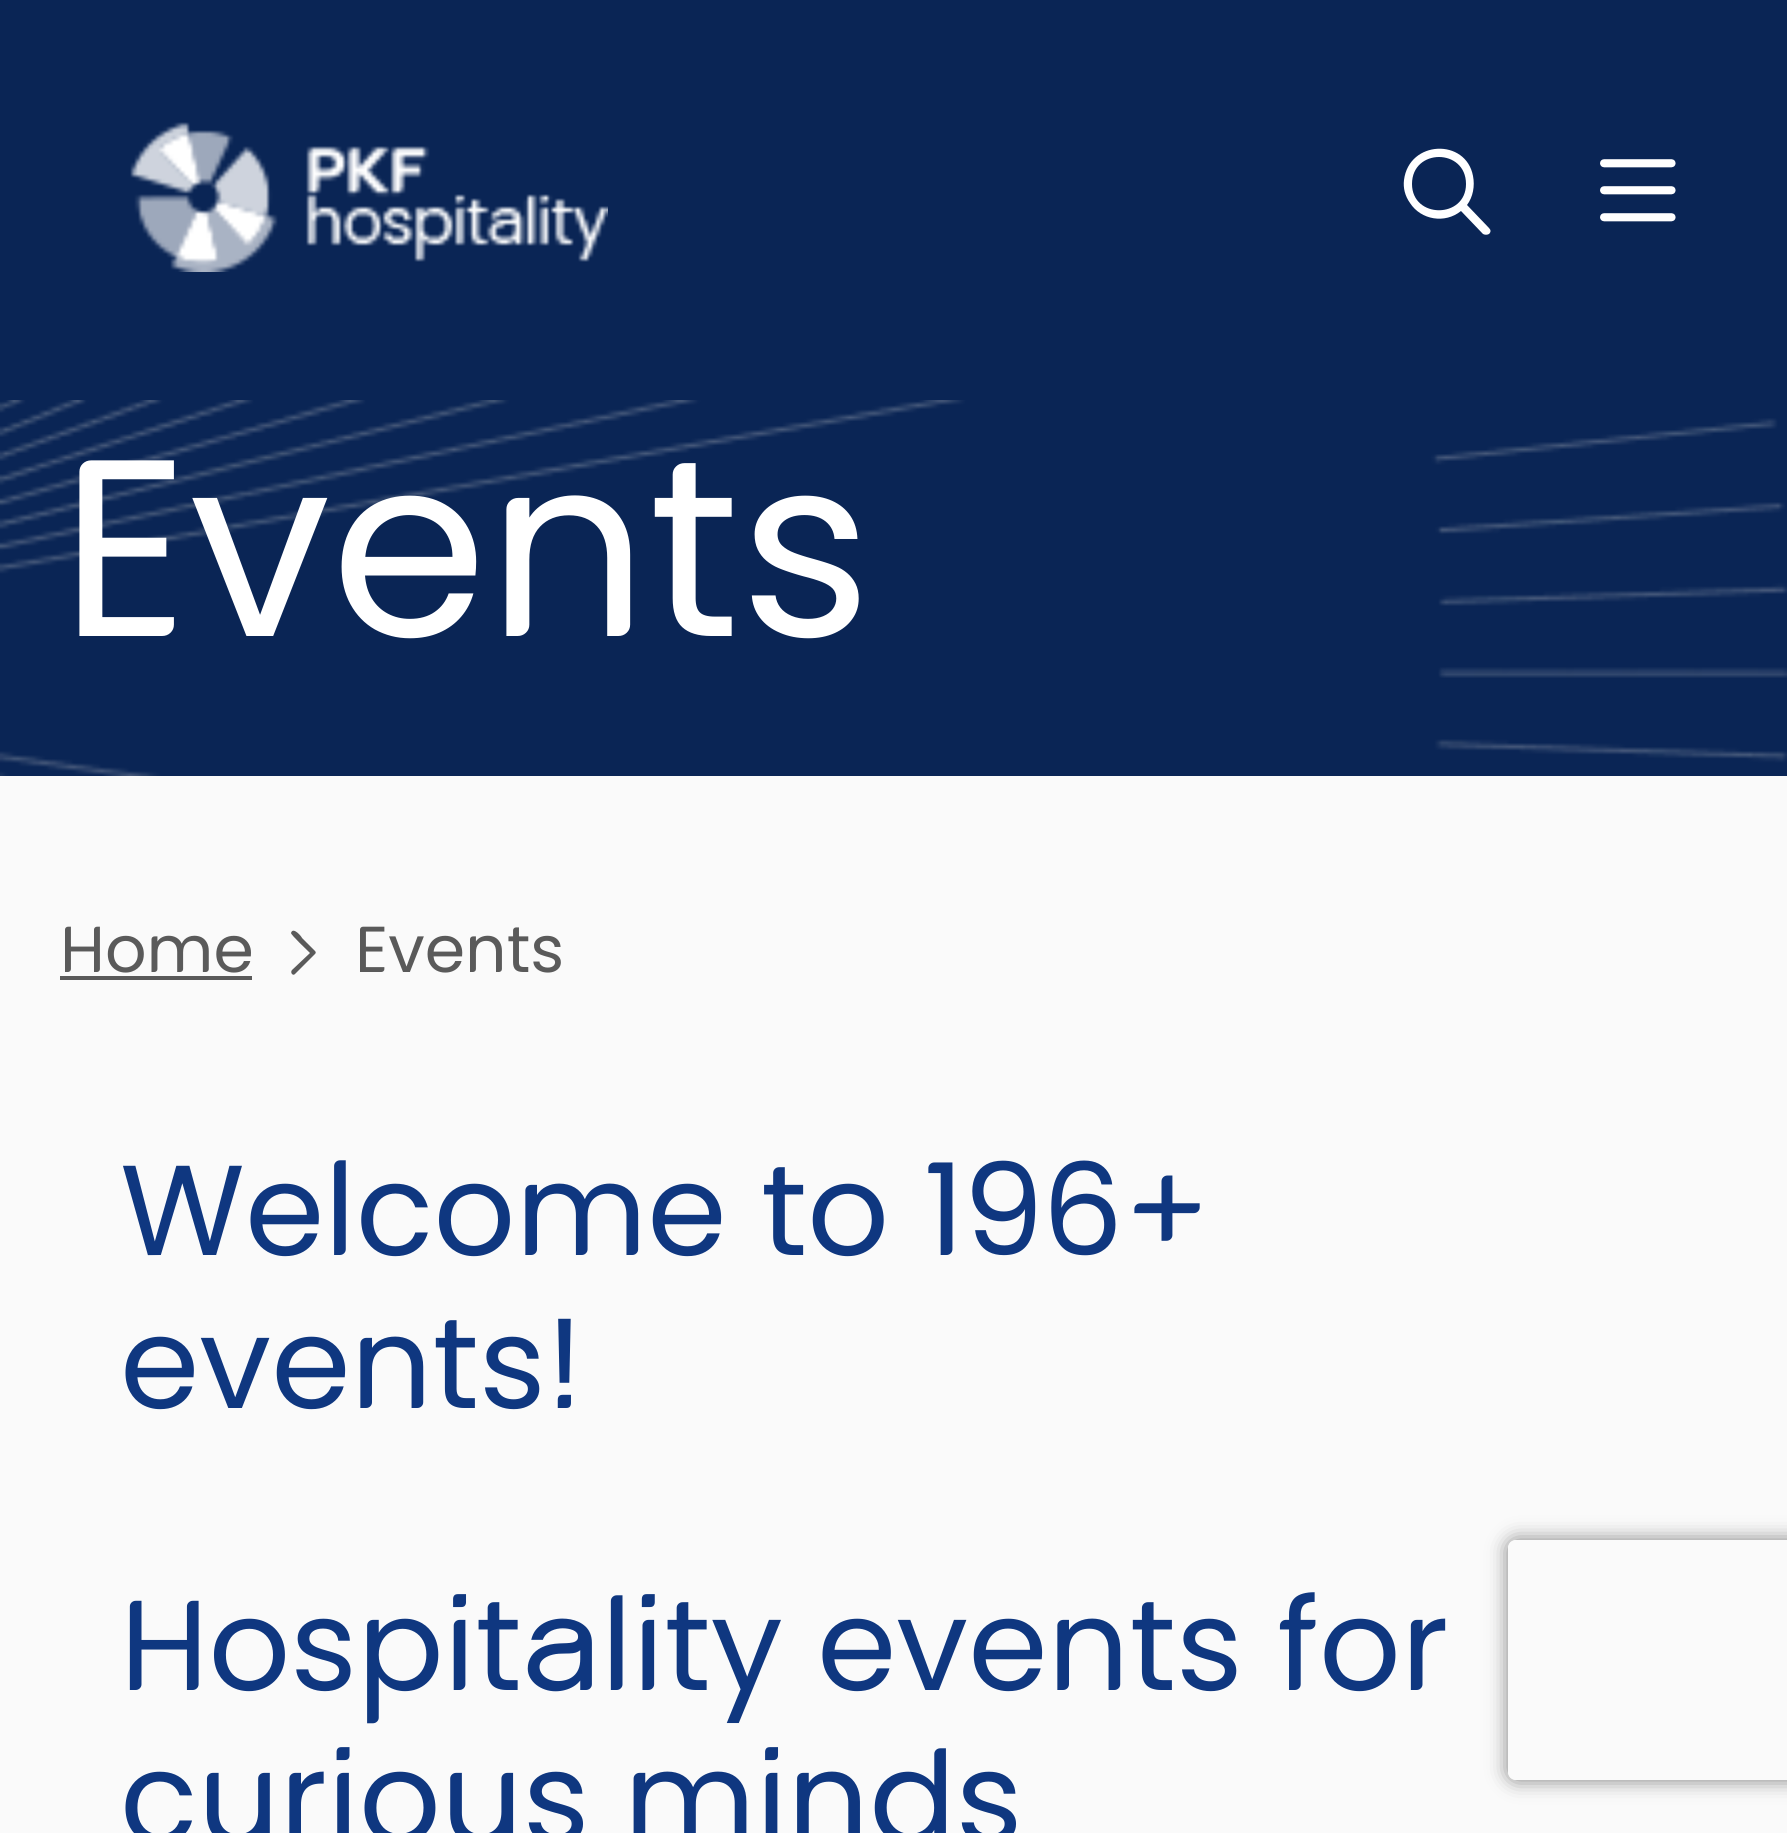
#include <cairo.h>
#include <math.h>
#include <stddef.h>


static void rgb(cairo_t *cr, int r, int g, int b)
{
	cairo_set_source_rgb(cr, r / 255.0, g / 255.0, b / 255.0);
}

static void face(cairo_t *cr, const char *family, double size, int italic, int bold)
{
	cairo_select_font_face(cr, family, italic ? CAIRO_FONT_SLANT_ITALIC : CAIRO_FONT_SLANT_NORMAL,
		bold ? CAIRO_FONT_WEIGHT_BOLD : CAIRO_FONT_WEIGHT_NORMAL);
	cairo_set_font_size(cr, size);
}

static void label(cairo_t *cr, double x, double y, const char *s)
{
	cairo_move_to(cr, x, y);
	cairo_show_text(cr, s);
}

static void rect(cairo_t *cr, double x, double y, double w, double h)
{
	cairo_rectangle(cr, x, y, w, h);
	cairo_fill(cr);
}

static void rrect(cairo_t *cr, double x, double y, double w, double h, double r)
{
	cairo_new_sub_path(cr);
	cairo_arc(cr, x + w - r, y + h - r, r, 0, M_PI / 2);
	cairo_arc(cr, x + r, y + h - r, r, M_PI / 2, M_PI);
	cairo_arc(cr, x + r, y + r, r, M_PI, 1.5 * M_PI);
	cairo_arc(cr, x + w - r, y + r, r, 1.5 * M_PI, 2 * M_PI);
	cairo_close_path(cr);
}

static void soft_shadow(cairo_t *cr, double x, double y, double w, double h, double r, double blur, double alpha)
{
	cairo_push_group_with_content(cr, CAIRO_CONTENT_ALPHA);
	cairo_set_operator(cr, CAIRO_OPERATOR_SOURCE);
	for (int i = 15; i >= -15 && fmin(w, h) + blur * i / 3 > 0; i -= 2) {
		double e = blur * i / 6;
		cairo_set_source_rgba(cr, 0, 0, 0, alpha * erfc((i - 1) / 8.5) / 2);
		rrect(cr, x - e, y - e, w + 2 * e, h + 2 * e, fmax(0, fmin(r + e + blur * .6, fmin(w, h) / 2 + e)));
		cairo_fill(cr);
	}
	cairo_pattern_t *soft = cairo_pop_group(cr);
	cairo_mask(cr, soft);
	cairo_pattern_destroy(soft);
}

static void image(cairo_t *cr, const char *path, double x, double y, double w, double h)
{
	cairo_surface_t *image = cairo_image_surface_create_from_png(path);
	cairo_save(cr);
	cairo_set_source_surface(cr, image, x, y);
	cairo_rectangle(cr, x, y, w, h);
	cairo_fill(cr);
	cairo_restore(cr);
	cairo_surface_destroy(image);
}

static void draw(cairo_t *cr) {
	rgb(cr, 250, 250, 250);
	cairo_paint(cr);
	rgb(cr, 10, 37, 85);
	rect(cr, 0, 0, 1787, 776);
	image(cr, "image0.png", 130, 122, 478, 150);
	rgb(cr, 255, 255, 255);
	cairo_new_path(cr);
	cairo_move_to(cr, 1466, 184);
	cairo_curve_to(cr, 1466, 148, 1412, 148, 1412, 184);
	cairo_curve_to(cr, 1412, 219, 1466, 219, 1466, 184);
	cairo_close_path(cr);
	cairo_move_to(cr, 1461, 211);
	cairo_curve_to(cr, 1445, 224, 1421, 220, 1410, 203);
	cairo_curve_to(cr, 1405, 196, 1403, 188, 1404, 180);
	cairo_curve_to(cr, 1409, 140, 1466, 138, 1473, 176);
	cairo_curve_to(cr, 1475, 186, 1473, 197, 1467, 205);
	cairo_line_to(cr, 1489, 228);
	cairo_curve_to(cr, 1491, 230, 1491, 232, 1489, 234);
	cairo_curve_to(cr, 1487, 235, 1485, 235, 1483, 234);
	cairo_close_path(cr);
	cairo_fill(cr);
	image(cr, "image1.png", 1600, 159, 76, 63);
	image(cr, "image2.png", 0, 400, 1787, 376);
	face(cr, "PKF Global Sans", 252, 0, 0);
	label(cr, 60, 636, "Events");
	face(cr, "PKF Global Sans", 65, 0, 0);
	rgb(cr, 90, 90, 90);
	label(cr, 60, 972, "Home");
	rect(cr, 60, 976, 192, 4);
	cairo_new_path(cr);
	cairo_move_to(cr, 315, 951);
	cairo_curve_to(cr, 316, 952, 316, 953, 315, 954);
	cairo_line_to(cr, 295, 974);
	cairo_curve_to(cr, 294, 975, 293, 975, 292, 974);
	cairo_curve_to(cr, 291, 973, 291, 971, 292, 970);
	cairo_line_to(cr, 310, 953);
	cairo_curve_to(cr, 307, 950, 291, 935, 291, 933);
	cairo_curve_to(cr, 293, 926, 302, 937, 302, 938);
	cairo_close_path(cr);
	cairo_fill(cr);
	label(cr, 355, 972, "Events");
	face(cr, "PKF Global Sans", 128, 0, 0);
	rgb(cr, 15, 55, 128);
	label(cr, 120, 1255, "Welcome to 196+");
	label(cr, 120, 1408, "events!");
	label(cr, 120, 1690, "Hospitality events for");
	label(cr, 120, 1843, "curious minds");
	cairo_save(cr);
	cairo_set_fill_rule(cr, CAIRO_FILL_RULE_EVEN_ODD);
	cairo_new_path(cr);
	cairo_move_to(cr, 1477, 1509);
	cairo_line_to(cr, 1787, 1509);
	cairo_line_to(cr, 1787, 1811);
	cairo_line_to(cr, 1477, 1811);
	cairo_close_path(cr);
	cairo_move_to(cr, 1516, 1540);
	cairo_line_to(cr, 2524, 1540);
	cairo_curve_to(cr, 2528.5, 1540, 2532, 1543.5, 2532, 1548);
	cairo_line_to(cr, 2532, 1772);
	cairo_curve_to(cr, 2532, 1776.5, 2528.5, 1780, 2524, 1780);
	cairo_line_to(cr, 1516, 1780);
	cairo_curve_to(cr, 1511.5, 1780, 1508, 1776.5, 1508, 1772);
	cairo_line_to(cr, 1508, 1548);
	cairo_curve_to(cr, 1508, 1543.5, 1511.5, 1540, 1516, 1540);
	cairo_close_path(cr);
	cairo_clip(cr);
	rgb(cr, 128, 128, 128);
	soft_shadow(cr, 1508, 1540, 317, 240, 8, 10, 1);
	cairo_restore(cr);
}

int main(void) {
	cairo_surface_t *surface = cairo_image_surface_create(CAIRO_FORMAT_RGB24, 1787, 1833);
	cairo_t *cr = cairo_create(surface);
	cairo_font_options_t *options = cairo_font_options_create();
	cairo_font_options_set_hint_metrics(options, CAIRO_HINT_METRICS_OFF);
	cairo_font_options_set_hint_style(options, CAIRO_HINT_STYLE_NONE);
	cairo_set_font_options(cr, options);
	cairo_set_miter_limit(cr, 4);
	draw(cr);
	cairo_surface_write_to_png(surface, "render.png");
	cairo_font_options_destroy(options);
	cairo_destroy(cr);
	cairo_surface_destroy(surface);
	return 0;
}
